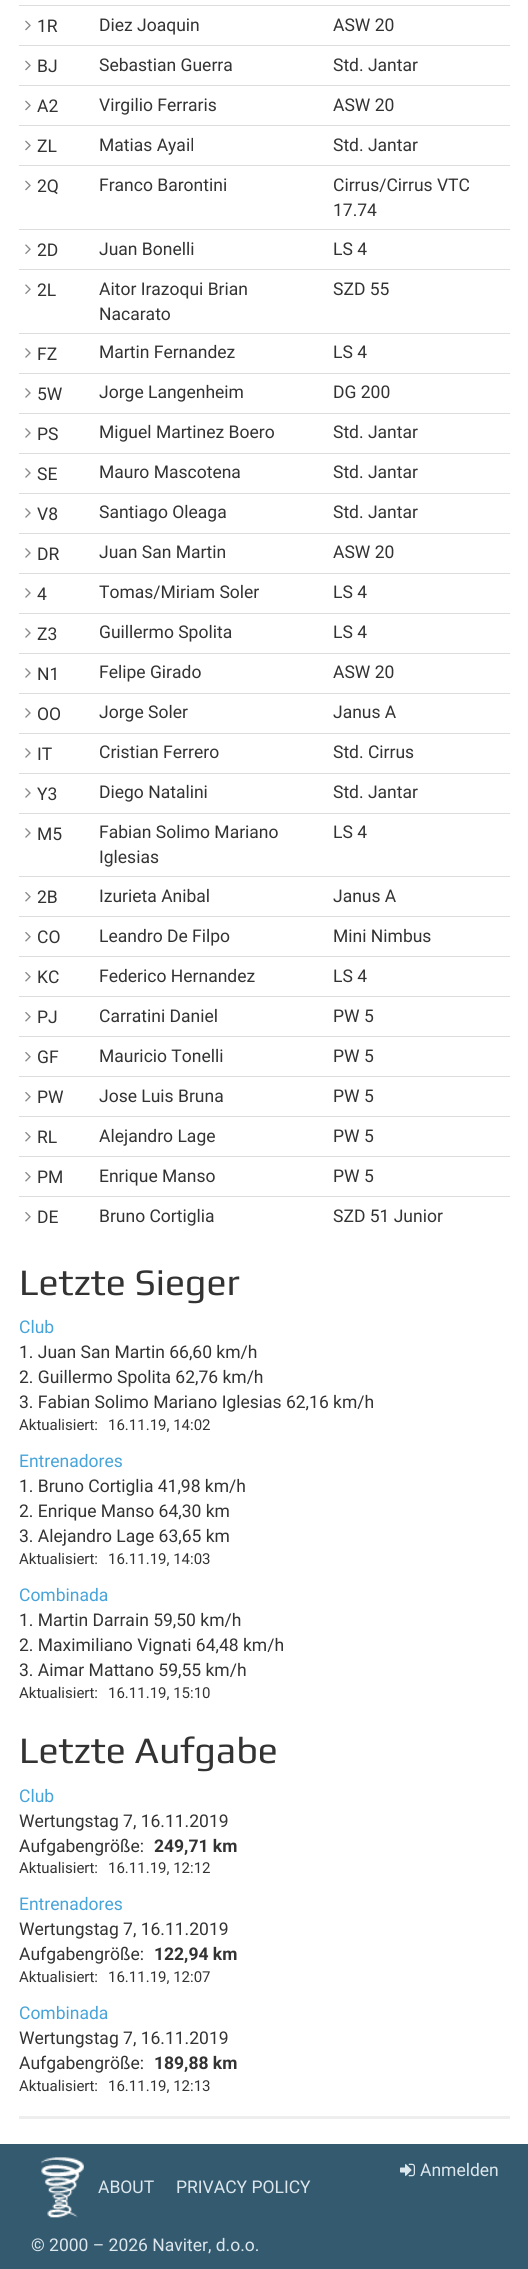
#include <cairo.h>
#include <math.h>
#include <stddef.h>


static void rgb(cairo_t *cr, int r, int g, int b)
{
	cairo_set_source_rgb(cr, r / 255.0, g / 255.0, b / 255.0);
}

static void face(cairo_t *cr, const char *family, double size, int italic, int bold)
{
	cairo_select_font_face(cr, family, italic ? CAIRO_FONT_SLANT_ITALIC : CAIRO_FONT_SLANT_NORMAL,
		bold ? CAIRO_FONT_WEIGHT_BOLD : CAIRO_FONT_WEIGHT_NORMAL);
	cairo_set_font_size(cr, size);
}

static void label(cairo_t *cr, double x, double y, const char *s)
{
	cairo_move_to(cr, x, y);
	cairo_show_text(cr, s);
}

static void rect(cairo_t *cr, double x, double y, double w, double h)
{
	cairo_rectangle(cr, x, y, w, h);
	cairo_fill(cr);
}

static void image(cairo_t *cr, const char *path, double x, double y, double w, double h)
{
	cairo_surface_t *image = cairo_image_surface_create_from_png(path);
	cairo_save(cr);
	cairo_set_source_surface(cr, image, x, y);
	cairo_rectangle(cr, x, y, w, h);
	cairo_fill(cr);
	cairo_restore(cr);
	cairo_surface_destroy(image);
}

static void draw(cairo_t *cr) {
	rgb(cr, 255, 255, 255);
	cairo_paint(cr);
	rgb(cr, 221, 221, 221);
	rect(cr, 19, 5, 491, 1);
	image(cr, "image0.png", 25, 20, 6, 11);
	face(cr, "Roboto", 17.5, 0, 0);
	rgb(cr, 51, 51, 51);
	label(cr, 37, 32, "1R");
	label(cr, 99, 31, "Diez Joaquin");
	label(cr, 333, 31, "ASW 20");
	rgb(cr, 221, 221, 221);
	rect(cr, 19, 45, 491, 1);
	image(cr, "image0.png", 25, 60, 6, 11);
	rgb(cr, 51, 51, 51);
	label(cr, 37, 72, "BJ");
	label(cr, 99, 71, "Sebastian Guerra");
	label(cr, 333, 71, "Std. Jantar");
	rgb(cr, 221, 221, 221);
	rect(cr, 19, 85, 491, 1);
	image(cr, "image0.png", 25, 100, 6, 11);
	rgb(cr, 51, 51, 51);
	label(cr, 37, 112, "A2");
	label(cr, 99, 111, "Virgilio Ferraris");
	label(cr, 333, 111, "ASW 20");
	rgb(cr, 221, 221, 221);
	rect(cr, 19, 125, 491, 1);
	image(cr, "image0.png", 25, 140, 6, 11);
	rgb(cr, 51, 51, 51);
	label(cr, 37, 152, "ZL");
	label(cr, 99, 151, "Matias Ayail");
	label(cr, 333, 151, "Std. Jantar");
	rgb(cr, 221, 221, 221);
	rect(cr, 19, 165, 491, 1);
	image(cr, "image0.png", 25, 180, 6, 11);
	rgb(cr, 51, 51, 51);
	label(cr, 37, 192, "2Q");
	label(cr, 99, 191, "Franco Barontini");
	label(cr, 333, 191, "Cirrus/Cirrus VTC");
	label(cr, 333, 216, "17.74");
	rgb(cr, 221, 221, 221);
	rect(cr, 19, 229, 491, 1);
	image(cr, "image1.png", 25, 244, 6, 10);
	rgb(cr, 51, 51, 51);
	label(cr, 37, 256, "2D");
	label(cr, 99, 255, "Juan Bonelli");
	label(cr, 333, 255, "LS 4");
	rgb(cr, 221, 221, 221);
	rect(cr, 19, 269, 491, 1);
	image(cr, "image1.png", 25, 284, 6, 10);
	rgb(cr, 51, 51, 51);
	label(cr, 37, 296, "2L");
	label(cr, 99, 295, "Aitor Irazoqui Brian");
	label(cr, 99, 320, "Nacarato");
	label(cr, 333, 295, "SZD 55");
	rgb(cr, 221, 221, 221);
	rect(cr, 19, 333, 491, 1);
	image(cr, "image2.png", 25, 348, 6, 10);
	rgb(cr, 51, 51, 51);
	label(cr, 37, 360, "FZ");
	label(cr, 99, 358, "Martin Fernandez");
	label(cr, 333, 358, "LS 4");
	rgb(cr, 221, 221, 221);
	rect(cr, 19, 373, 491, 1);
	image(cr, "image2.png", 25, 388, 6, 10);
	rgb(cr, 51, 51, 51);
	label(cr, 37, 400, "5W");
	label(cr, 99, 398, "Jorge Langenheim");
	label(cr, 333, 398, "DG 200");
	rgb(cr, 221, 221, 221);
	rect(cr, 19, 413, 491, 1);
	image(cr, "image2.png", 25, 428, 6, 10);
	rgb(cr, 51, 51, 51);
	label(cr, 37, 440, "PS");
	label(cr, 99, 438, "Miguel Martinez Boero");
	label(cr, 333, 438, "Std. Jantar");
	rgb(cr, 221, 221, 221);
	rect(cr, 19, 453, 491, 1);
	image(cr, "image2.png", 25, 468, 6, 10);
	rgb(cr, 51, 51, 51);
	label(cr, 37, 480, "SE");
	label(cr, 99, 478, "Mauro Mascotena");
	label(cr, 333, 478, "Std. Jantar");
	rgb(cr, 221, 221, 221);
	rect(cr, 19, 493, 491, 1);
	image(cr, "image2.png", 25, 508, 6, 10);
	rgb(cr, 51, 51, 51);
	label(cr, 37, 520, "V8");
	label(cr, 99, 518, "Santiago Oleaga");
	label(cr, 333, 518, "Std. Jantar");
	rgb(cr, 221, 221, 221);
	rect(cr, 19, 533, 491, 1);
	image(cr, "image2.png", 25, 548, 6, 10);
	rgb(cr, 51, 51, 51);
	label(cr, 37, 560, "DR");
	label(cr, 99, 558, "Juan San Martin");
	label(cr, 333, 558, "ASW 20");
	rgb(cr, 221, 221, 221);
	rect(cr, 19, 573, 491, 1);
	image(cr, "image2.png", 25, 588, 6, 10);
	rgb(cr, 51, 51, 51);
	label(cr, 37, 600, "4");
	label(cr, 99, 598, "Tomas/Miriam Soler");
	label(cr, 333, 598, "LS 4");
	rgb(cr, 221, 221, 221);
	rect(cr, 19, 613, 491, 1);
	image(cr, "image2.png", 25, 628, 6, 10);
	rgb(cr, 51, 51, 51);
	label(cr, 37, 640, "Z3");
	label(cr, 99, 638, "Guillermo Spolita");
	label(cr, 333, 638, "LS 4");
	rgb(cr, 221, 221, 221);
	rect(cr, 19, 653, 491, 1);
	image(cr, "image2.png", 25, 668, 6, 10);
	rgb(cr, 51, 51, 51);
	label(cr, 37, 680, "N1");
	label(cr, 99, 678, "Felipe Girado");
	label(cr, 333, 678, "ASW 20");
	rgb(cr, 221, 221, 221);
	rect(cr, 19, 693, 491, 1);
	image(cr, "image2.png", 25, 708, 6, 10);
	rgb(cr, 51, 51, 51);
	label(cr, 37, 720, "OO");
	label(cr, 99, 718, "Jorge Soler");
	label(cr, 333, 718, "Janus A");
	rgb(cr, 221, 221, 221);
	rect(cr, 19, 733, 491, 1);
	image(cr, "image2.png", 25, 748, 6, 10);
	rgb(cr, 51, 51, 51);
	label(cr, 37, 760, "IT");
	label(cr, 99, 758, "Cristian Ferrero");
	label(cr, 333, 758, "Std. Cirrus");
	rgb(cr, 221, 221, 221);
	rect(cr, 19, 773, 491, 1);
	image(cr, "image2.png", 25, 788, 6, 10);
	rgb(cr, 51, 51, 51);
	label(cr, 37, 800, "Y3");
	label(cr, 99, 798, "Diego Natalini");
	label(cr, 333, 798, "Std. Jantar");
	rgb(cr, 221, 221, 221);
	rect(cr, 19, 813, 491, 1);
	image(cr, "image2.png", 25, 828, 6, 10);
	rgb(cr, 51, 51, 51);
	label(cr, 37, 840, "M5");
	label(cr, 99, 838, "Fabian Solimo Mariano");
	label(cr, 99, 863, "Iglesias");
	label(cr, 333, 838, "LS 4");
	rgb(cr, 221, 221, 221);
	rect(cr, 19, 876, 491, 1);
	image(cr, "image3.png", 25, 892, 6, 10);
	rgb(cr, 51, 51, 51);
	label(cr, 37, 903, "2B");
	label(cr, 99, 902, "Izurieta Anibal");
	label(cr, 333, 902, "Janus A");
	rgb(cr, 221, 221, 221);
	rect(cr, 19, 916, 491, 1);
	image(cr, "image3.png", 25, 932, 6, 10);
	rgb(cr, 51, 51, 51);
	label(cr, 37, 943, "CO");
	label(cr, 99, 942, "Leandro De Filpo");
	label(cr, 333, 942, "Mini Nimbus");
	rgb(cr, 221, 221, 221);
	rect(cr, 19, 956, 491, 1);
	image(cr, "image3.png", 25, 972, 6, 10);
	rgb(cr, 51, 51, 51);
	label(cr, 37, 983, "KC");
	label(cr, 99, 982, "Federico Hernandez");
	label(cr, 333, 982, "LS 4");
	rgb(cr, 221, 221, 221);
	rect(cr, 19, 996, 491, 1);
	image(cr, "image3.png", 25, 1012, 6, 10);
	rgb(cr, 51, 51, 51);
	label(cr, 37, 1023, "PJ");
	label(cr, 99, 1022, "Carratini Daniel");
	label(cr, 333, 1022, "PW 5");
	rgb(cr, 221, 221, 221);
	rect(cr, 19, 1036, 491, 1);
	image(cr, "image3.png", 25, 1052, 6, 10);
	rgb(cr, 51, 51, 51);
	label(cr, 37, 1063, "GF");
	label(cr, 99, 1062, "Mauricio Tonelli");
	label(cr, 333, 1062, "PW 5");
	rgb(cr, 221, 221, 221);
	rect(cr, 19, 1076, 491, 1);
	image(cr, "image3.png", 25, 1092, 6, 10);
	rgb(cr, 51, 51, 51);
	label(cr, 37, 1103, "PW");
	label(cr, 99, 1102, "Jose Luis Bruna");
	label(cr, 333, 1102, "PW 5");
	rgb(cr, 221, 221, 221);
	rect(cr, 19, 1116, 491, 1);
	image(cr, "image3.png", 25, 1132, 6, 10);
	rgb(cr, 51, 51, 51);
	label(cr, 37, 1143, "RL");
	label(cr, 99, 1142, "Alejandro Lage");
	label(cr, 333, 1142, "PW 5");
	rgb(cr, 221, 221, 221);
	rect(cr, 19, 1156, 491, 1);
	image(cr, "image3.png", 25, 1172, 6, 10);
	rgb(cr, 51, 51, 51);
	label(cr, 37, 1183, "PM");
	label(cr, 99, 1182, "Enrique Manso");
	label(cr, 333, 1182, "PW 5");
	rgb(cr, 221, 221, 221);
	rect(cr, 19, 1196, 491, 1);
	image(cr, "image3.png", 25, 1212, 6, 10);
	rgb(cr, 51, 51, 51);
	label(cr, 37, 1223, "DE");
	label(cr, 99, 1222, "Bruno Cortiglia");
	label(cr, 333, 1222, "SZD 51 Junior");
	face(cr, "Play", 37.5, 0, 0);
	label(cr, 19, 1295, "Letzte Sieger");
	face(cr, "Roboto", 17.5, 0, 0);
	rgb(cr, 71, 164, 217);
	label(cr, 19, 1333, "Club");
	rgb(cr, 51, 51, 51);
	label(cr, 19, 1358, "1. Juan San Martin 66,60 km/h");
	label(cr, 19, 1383, "2. Guillermo Spolita 62,76 km/h");
	label(cr, 19, 1408, "3. Fabian Solimo Mariano Iglesias 62,16 km/h");
	face(cr, "Roboto", 15, 0, 0);
	label(cr, 19, 1430, "Aktualisiert:");
	label(cr, 108, 1430, "16.11.19, 14:02");
	face(cr, "Roboto", 17.5, 0, 0);
	rgb(cr, 71, 164, 217);
	label(cr, 19, 1467, "Entrenadores");
	rgb(cr, 51, 51, 51);
	label(cr, 19, 1492, "1. Bruno Cortiglia 41,98 km/h");
	label(cr, 19, 1517, "2. Enrique Manso 64,30 km");
	label(cr, 19, 1542, "3. Alejandro Lage 63,65 km");
	face(cr, "Roboto", 15, 0, 0);
	label(cr, 19, 1564, "Aktualisiert:");
	label(cr, 108, 1564, "16.11.19, 14:03");
	face(cr, "Roboto", 17.5, 0, 0);
	rgb(cr, 71, 164, 217);
	label(cr, 19, 1601, "Combinada");
	rgb(cr, 51, 51, 51);
	label(cr, 19, 1626, "1. Martin Darrain 59,50 km/h");
	label(cr, 19, 1651, "2. Maximiliano Vignati 64,48 km/h");
	label(cr, 19, 1676, "3. Aimar Mattano 59,55 km/h");
	face(cr, "Roboto", 15, 0, 0);
	label(cr, 19, 1698, "Aktualisiert:");
	label(cr, 108, 1698, "16.11.19, 15:10");
	face(cr, "Play", 37.5, 0, 0);
	label(cr, 19, 1763, "Letzte Aufgabe");
	face(cr, "Roboto", 17.5, 0, 0);
	rgb(cr, 71, 164, 217);
	label(cr, 19, 1802, "Club");
	rgb(cr, 51, 51, 51);
	label(cr, 19, 1827, "Wertungstag 7, 16.11.2019");
	label(cr, 19, 1852, "Aufgabengröße:");
	face(cr, "Roboto", 17.5, 0, 1);
	label(cr, 154, 1852, "249,71 km");
	face(cr, "Roboto", 15, 0, 0);
	label(cr, 19, 1873, "Aktualisiert:");
	label(cr, 108, 1873, "16.11.19, 12:12");
	face(cr, "Roboto", 17.5, 0, 0);
	rgb(cr, 71, 164, 217);
	label(cr, 19, 1910, "Entrenadores");
	rgb(cr, 51, 51, 51);
	label(cr, 19, 1935, "Wertungstag 7, 16.11.2019");
	label(cr, 19, 1960, "Aufgabengröße:");
	face(cr, "Roboto", 17.5, 0, 1);
	label(cr, 154, 1960, "122,94 km");
	face(cr, "Roboto", 15, 0, 0);
	label(cr, 19, 1982, "Aktualisiert:");
	label(cr, 108, 1982, "16.11.19, 12:07");
	face(cr, "Roboto", 17.5, 0, 0);
	rgb(cr, 71, 164, 217);
	label(cr, 19, 2019, "Combinada");
	rgb(cr, 51, 51, 51);
	label(cr, 19, 2044, "Wertungstag 7, 16.11.2019");
	label(cr, 19, 2069, "Aufgabengröße:");
	face(cr, "Roboto", 17.5, 0, 1);
	label(cr, 154, 2069, "189,88 km");
	face(cr, "Roboto", 15, 0, 0);
	label(cr, 19, 2091, "Aktualisiert:");
	label(cr, 108, 2091, "16.11.19, 12:13");
	rgb(cr, 238, 238, 238);
	rect(cr, 19, 2116, 491, 3);
	rgb(cr, 52, 90, 111);
	rect(cr, 0, 2144, 528, 125);
	image(cr, "image4.png", 400, 2163, 15, 14);
	face(cr, "Roboto", 17.5, 0, 0);
	rgb(cr, 220, 231, 237);
	label(cr, 420, 2176, "Anmelden");
	image(cr, "image5.png", 41, 2157, 43, 61);
	label(cr, 98, 2193, "ABOUT");
	label(cr, 176, 2193, "PRIVACY POLICY");
	label(cr, 31, 2251, "© 2000 – 2026 Naviter, d.o.o.");
}

int main(void) {
	cairo_surface_t *surface = cairo_image_surface_create(CAIRO_FORMAT_RGB24, 528, 2269);
	cairo_t *cr = cairo_create(surface);
	cairo_font_options_t *options = cairo_font_options_create();
	cairo_font_options_set_hint_metrics(options, CAIRO_HINT_METRICS_OFF);
	cairo_font_options_set_hint_style(options, CAIRO_HINT_STYLE_NONE);
	cairo_set_font_options(cr, options);
	cairo_set_miter_limit(cr, 4);
	draw(cr);
	cairo_surface_write_to_png(surface, "render.png");
	cairo_font_options_destroy(options);
	cairo_destroy(cr);
	cairo_surface_destroy(surface);
	return 0;
}
